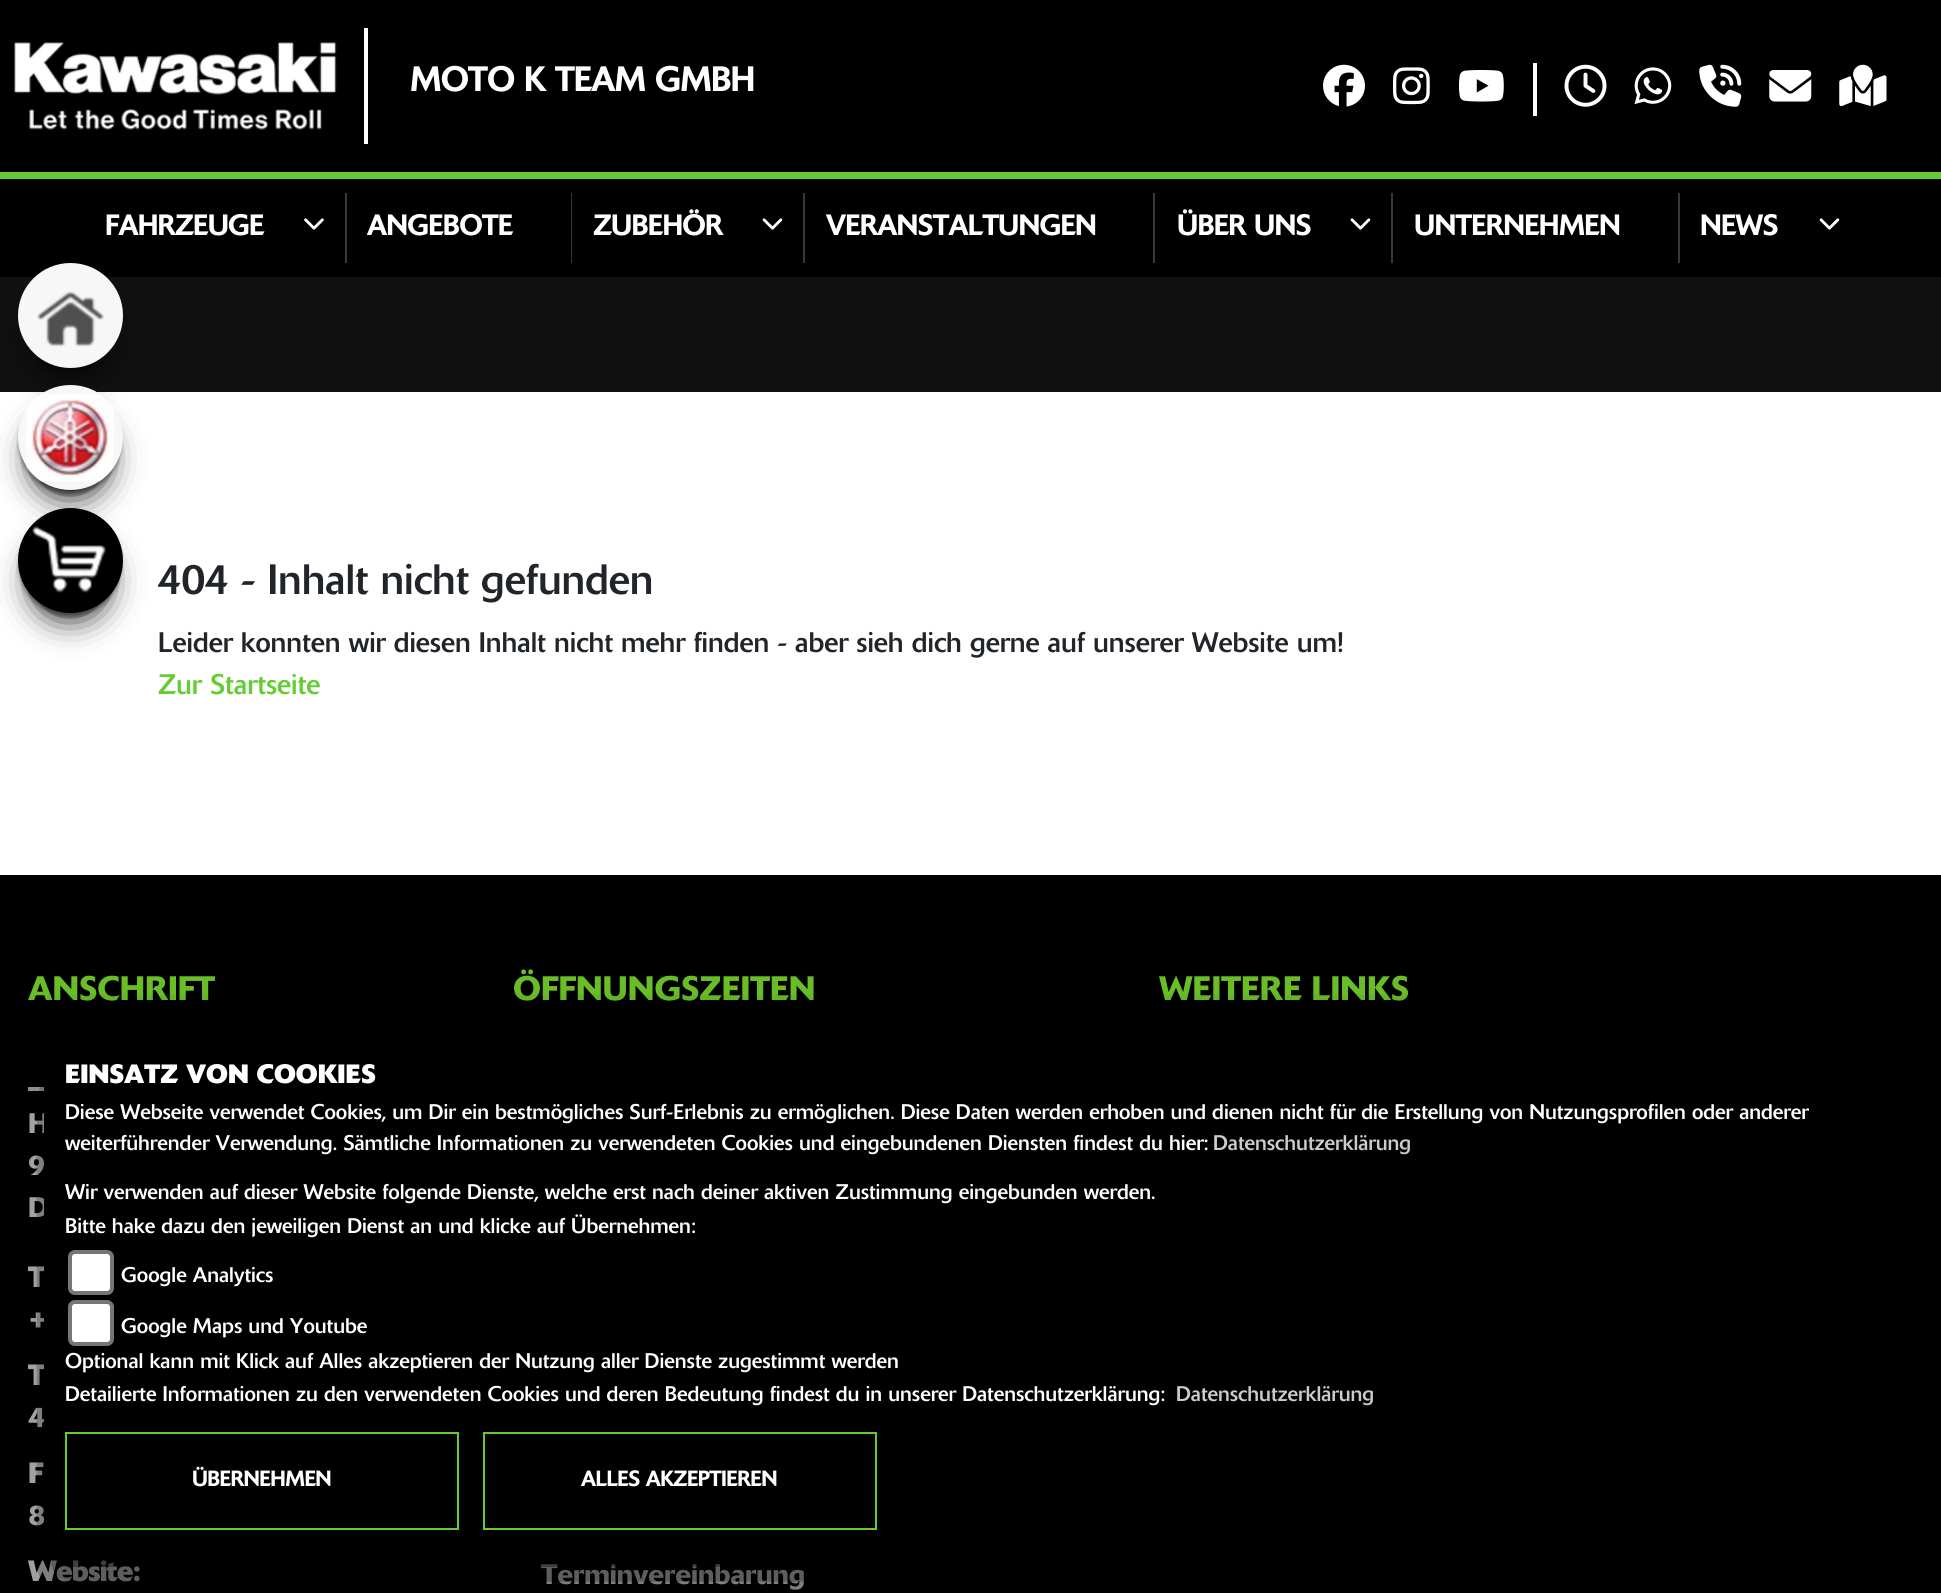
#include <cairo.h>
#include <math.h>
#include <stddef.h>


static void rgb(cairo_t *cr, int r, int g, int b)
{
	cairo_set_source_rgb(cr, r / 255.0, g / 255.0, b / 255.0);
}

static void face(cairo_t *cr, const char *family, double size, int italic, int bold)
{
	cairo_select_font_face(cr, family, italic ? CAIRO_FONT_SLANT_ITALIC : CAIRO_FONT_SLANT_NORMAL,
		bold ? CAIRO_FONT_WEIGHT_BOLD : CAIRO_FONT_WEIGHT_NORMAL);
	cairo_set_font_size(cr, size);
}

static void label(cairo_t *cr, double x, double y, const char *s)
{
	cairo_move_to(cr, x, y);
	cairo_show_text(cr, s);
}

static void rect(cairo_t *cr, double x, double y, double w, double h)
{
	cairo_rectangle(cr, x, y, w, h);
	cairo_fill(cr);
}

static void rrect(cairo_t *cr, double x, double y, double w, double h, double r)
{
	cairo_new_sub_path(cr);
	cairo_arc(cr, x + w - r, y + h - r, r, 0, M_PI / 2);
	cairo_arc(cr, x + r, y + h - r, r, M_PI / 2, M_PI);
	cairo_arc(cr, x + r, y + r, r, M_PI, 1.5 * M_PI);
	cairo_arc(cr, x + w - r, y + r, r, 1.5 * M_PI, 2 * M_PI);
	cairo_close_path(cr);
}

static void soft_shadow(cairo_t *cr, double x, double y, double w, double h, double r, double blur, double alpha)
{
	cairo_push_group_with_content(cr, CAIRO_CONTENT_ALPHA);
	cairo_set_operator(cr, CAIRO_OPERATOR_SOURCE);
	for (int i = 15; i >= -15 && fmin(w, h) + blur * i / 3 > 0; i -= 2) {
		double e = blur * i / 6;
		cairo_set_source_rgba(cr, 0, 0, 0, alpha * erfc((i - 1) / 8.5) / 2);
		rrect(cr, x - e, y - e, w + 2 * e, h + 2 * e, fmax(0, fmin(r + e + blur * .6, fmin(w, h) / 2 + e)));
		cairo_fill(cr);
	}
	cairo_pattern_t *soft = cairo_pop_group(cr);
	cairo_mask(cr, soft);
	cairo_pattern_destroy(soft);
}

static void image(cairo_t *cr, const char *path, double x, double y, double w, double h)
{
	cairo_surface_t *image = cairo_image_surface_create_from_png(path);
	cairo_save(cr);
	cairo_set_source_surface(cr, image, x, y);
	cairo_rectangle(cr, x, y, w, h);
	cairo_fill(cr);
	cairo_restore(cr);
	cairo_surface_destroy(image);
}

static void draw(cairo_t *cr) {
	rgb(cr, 255, 255, 255);
	cairo_paint(cr);
	rgb(cr, 0, 0, 0);
	rect(cr, 0, 0, 1941, 277);
	rgb(cr, 102, 204, 51);
	rect(cr, 0, 172, 1941, 7);
	image(cr, "image0.png", 14, 42, 323, 88);
	rgb(cr, 255, 255, 255);
	rect(cr, 364, 28, 4, 116);
	face(cr, "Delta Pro", 33.6, 0, 1);
	label(cr, 410, 91, "MOTO K TEAM GMBH");
	image(cr, "image1.png", 1323, 64, 42, 43);
	image(cr, "image2.png", 1393, 67, 37, 38);
	image(cr, "image3.png", 1459, 70, 45, 32);
	rect(cr, 1533, 63, 4, 53);
	image(cr, "image4.png", 1564, 64, 43, 43);
	image(cr, "image5.png", 1634, 67, 38, 38);
	image(cr, "image6.png", 1699, 64, 43, 43);
	image(cr, "image7.png", 1769, 70, 43, 32);
	image(cr, "image8.png", 1839, 64, 48, 43);
	rgb(cr, 57, 56, 56);
	rect(cr, 345, 193, 2, 70);
	face(cr, "Delta Pro", 28, 0, 1);
	rgb(cr, 255, 255, 255);
	label(cr, 105, 235, "FAHRZEUGE");
	image(cr, "image9.png", 304, 218, 20, 12);
	rgb(cr, 57, 56, 56);
	rect(cr, 571, 193, 1, 70);
	rgb(cr, 255, 255, 255);
	label(cr, 367, 235, "ANGEBOTE");
	rgb(cr, 57, 56, 56);
	rect(cr, 803, 193, 2, 70);
	rgb(cr, 255, 255, 255);
	label(cr, 593, 235, "ZUBEHÖR");
	image(cr, "image10.png", 762, 218, 21, 12);
	rgb(cr, 57, 56, 56);
	rect(cr, 1153, 193, 2, 70);
	rgb(cr, 255, 255, 255);
	label(cr, 826, 235, "VERANSTALTUNGEN");
	rgb(cr, 57, 56, 56);
	rect(cr, 1391, 193, 2, 70);
	rgb(cr, 255, 255, 255);
	label(cr, 1177, 235, "ÜBER UNS");
	image(cr, "image10.png", 1350, 218, 21, 12);
	rgb(cr, 57, 56, 56);
	rect(cr, 1678, 193, 2, 70);
	rgb(cr, 255, 255, 255);
	label(cr, 1414, 235, "UNTERNEHMEN");
	label(cr, 1700, 235, "NEWS");
	image(cr, "image10.png", 1819, 218, 21, 12);
	rgb(cr, 17, 17, 17);
	rect(cr, 0, 277, 1941, 115);
	rgb(cr, 0, 0, 0);
	soft_shadow(cr, 35, 301, 70, 70, 35, 17.5, 1);
	rgb(cr, 247, 247, 247);
	cairo_arc(cr, 70.5, 315.5, 52.5, 0, 2 * M_PI);
	cairo_fill(cr);
	image(cr, "image11.png", 37, 291, 67, 56);
	rgb(cr, 0, 0, 0);
	soft_shadow(cr, 35, 424, 70, 70, 35, 17.5, 1);
	soft_shadow(cr, 19, 392, 102, 102, 51, 2, 0.5);
	rgb(cr, 247, 247, 247);
	cairo_arc(cr, 70.5, 437.5, 52.5, 0, 2 * M_PI);
	cairo_fill(cr);
	image(cr, "image12.png", 25, 394, 89, 88);
	rgb(cr, 0, 0, 0);
	soft_shadow(cr, 35, 546, 70, 70, 35, 17.5, 1);
	soft_shadow(cr, 19, 515, 102, 101, 50.5, 2, 0.5);
	rgb(cr, 0, 0, 0);
	cairo_arc(cr, 70.5, 560.5, 52.5, 0, 2 * M_PI);
	cairo_fill(cr);
	image(cr, "image13.png", 32, 526, 74, 67);
	face(cr, "Delta Pro", 42, 0, 0);
	rgb(cr, 33, 37, 41);
	label(cr, 158, 594, "404 - Inhalt nicht gefunden");
	face(cr, "Delta Pro", 28, 0, 0);
	label(cr, 158, 652, "Leider konnten wir diesen Inhalt nicht mehr finden - aber sieh dich gerne auf unserer Website um!");
	rgb(cr, 102, 204, 51);
	label(cr, 158, 694, "Zur Startseite");
	rgb(cr, 0, 0, 0);
	rect(cr, 0, 875, 1941, 718);
	face(cr, "Delta Pro Medium", 33.6, 0, 0);
	rgb(cr, 105, 190, 40);
	label(cr, 28, 1000, "ANSCHRIFT");
	rgb(cr, 222, 226, 230);
	rect(cr, 28, 1087, 16, 4);
	face(cr, "Delta Pro Medium", 28, 0, 0);
	rgb(cr, 255, 255, 255);
	label(cr, 28, 1133, "H");
	label(cr, 28, 1175, "9");
	label(cr, 28, 1217, "D");
	face(cr, "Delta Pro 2", 28, 0, 1);
	label(cr, 28, 1287, "T");
	face(cr, "Delta Pro Medium", 28, 0, 0);
	label(cr, 28, 1329, "+");
	face(cr, "Delta Pro 2", 28, 0, 1);
	label(cr, 28, 1385, "T");
	face(cr, "Delta Pro Medium", 28, 0, 0);
	label(cr, 28, 1427, "4");
	face(cr, "Delta Pro 2", 28, 0, 1);
	label(cr, 28, 1483, "F");
	face(cr, "Delta Pro Medium", 28, 0, 0);
	label(cr, 28, 1525, "8");
	face(cr, "Delta Pro 2", 28, 0, 1);
	label(cr, 28, 1581, "Website:");
	face(cr, "Delta Pro Medium", 33.6, 0, 0);
	rgb(cr, 105, 190, 40);
	label(cr, 513, 1000, "ÖFFNUNGSZEITEN");
	face(cr, "Delta Pro Medium", 28, 0, 0);
	rgb(cr, 255, 255, 255);
	label(cr, 541, 1584, "Terminvereinbarung");
	face(cr, "Delta Pro Medium", 33.6, 0, 0);
	rgb(cr, 105, 190, 40);
	label(cr, 1159, 1000, "WEITERE LINKS");
	cairo_save(cr);
	cairo_rectangle(cr, 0, 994, 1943, 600);
	cairo_clip(cr);
	rgb(cr, 0, 0, 0);
	soft_shadow(cr, 44, 1076, 1855, 513, 0, 44, 1);
	cairo_restore(cr);
	rgb(cr, 0, 0, 0);
	rect(cr, 44, 1113, 5, 408);
	face(cr, "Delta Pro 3", 26.25, 0, 1);
	rgb(cr, 255, 255, 255);
	label(cr, 65, 1083, "EINSATZ VON COOKIES");
	face(cr, "Delta Pro", 21, 0, 0);
	label(cr, 65, 1119, "Diese Webseite verwendet Cookies, um Dir ein bestmögliches Surf-Erlebnis zu ermöglichen. Diese Daten werden erhoben und dienen nicht für die Erstellung von Nutzungsprofilen oder anderer");
	label(cr, 65, 1150, "weiterführender Verwendung. Sämtliche Informationen zu verwendeten Cookies und eingebundenen Diensten findest du hier:");
	rgb(cr, 204, 204, 204);
	label(cr, 1213, 1150, "Datenschutzerklärung");
	rgb(cr, 255, 255, 255);
	label(cr, 65, 1199, "Wir verwenden auf dieser Website folgende Dienste, welche erst nach deiner aktiven Zustimmung eingebunden werden.");
	label(cr, 65, 1233, "Bitte hake dazu den jeweiligen Dienst an und klicke auf Übernehmen:");
	rrect(cr, 70, 1252, 42, 41, 5);
	cairo_fill_preserve(cr);
	rgb(cr, 118, 118, 118);
	cairo_set_line_width(cr, 4);
	cairo_stroke(cr);
	rgb(cr, 255, 255, 255);
	label(cr, 121, 1282, "Google Analytics");
	rrect(cr, 70, 1302, 42, 42, 5);
	cairo_fill_preserve(cr);
	rgb(cr, 118, 118, 118);
	cairo_stroke(cr);
	rgb(cr, 255, 255, 255);
	label(cr, 121, 1333, "Google Maps und Youtube");
	label(cr, 65, 1368, "Optional kann mit Klick auf Alles akzeptieren der Nutzung aller Dienste zugestimmt werden");
	label(cr, 65, 1401, "Detailierte Informationen zu den verwendeten Cookies und deren Bedeutung findest du in unserer Datenschutzerklärung:");
	rgb(cr, 204, 204, 204);
	label(cr, 1176, 1401, "Datenschutzerklärung");
	cairo_rectangle(cr, 66, 1433, 392, 96);
	rgb(cr, 102, 204, 51);
	cairo_set_line_width(cr, 2);
	cairo_stroke(cr);
	face(cr, "Delta Pro", 21, 0, 1);
	rgb(cr, 255, 255, 255);
	label(cr, 192, 1486, "ÜBERNEHMEN");
	cairo_rectangle(cr, 484, 1433, 392, 96);
	rgb(cr, 102, 204, 51);
	cairo_stroke(cr);
	rgb(cr, 255, 255, 255);
	label(cr, 581, 1486, "ALLES AKZEPTIEREN");
}

int main(void) {
	cairo_surface_t *surface = cairo_image_surface_create(CAIRO_FORMAT_RGB24, 1941, 1593);
	cairo_t *cr = cairo_create(surface);
	cairo_font_options_t *options = cairo_font_options_create();
	cairo_font_options_set_hint_metrics(options, CAIRO_HINT_METRICS_OFF);
	cairo_font_options_set_hint_style(options, CAIRO_HINT_STYLE_NONE);
	cairo_set_font_options(cr, options);
	cairo_set_miter_limit(cr, 4);
	draw(cr);
	cairo_surface_write_to_png(surface, "render.png");
	cairo_font_options_destroy(options);
	cairo_destroy(cr);
	cairo_surface_destroy(surface);
	return 0;
}
